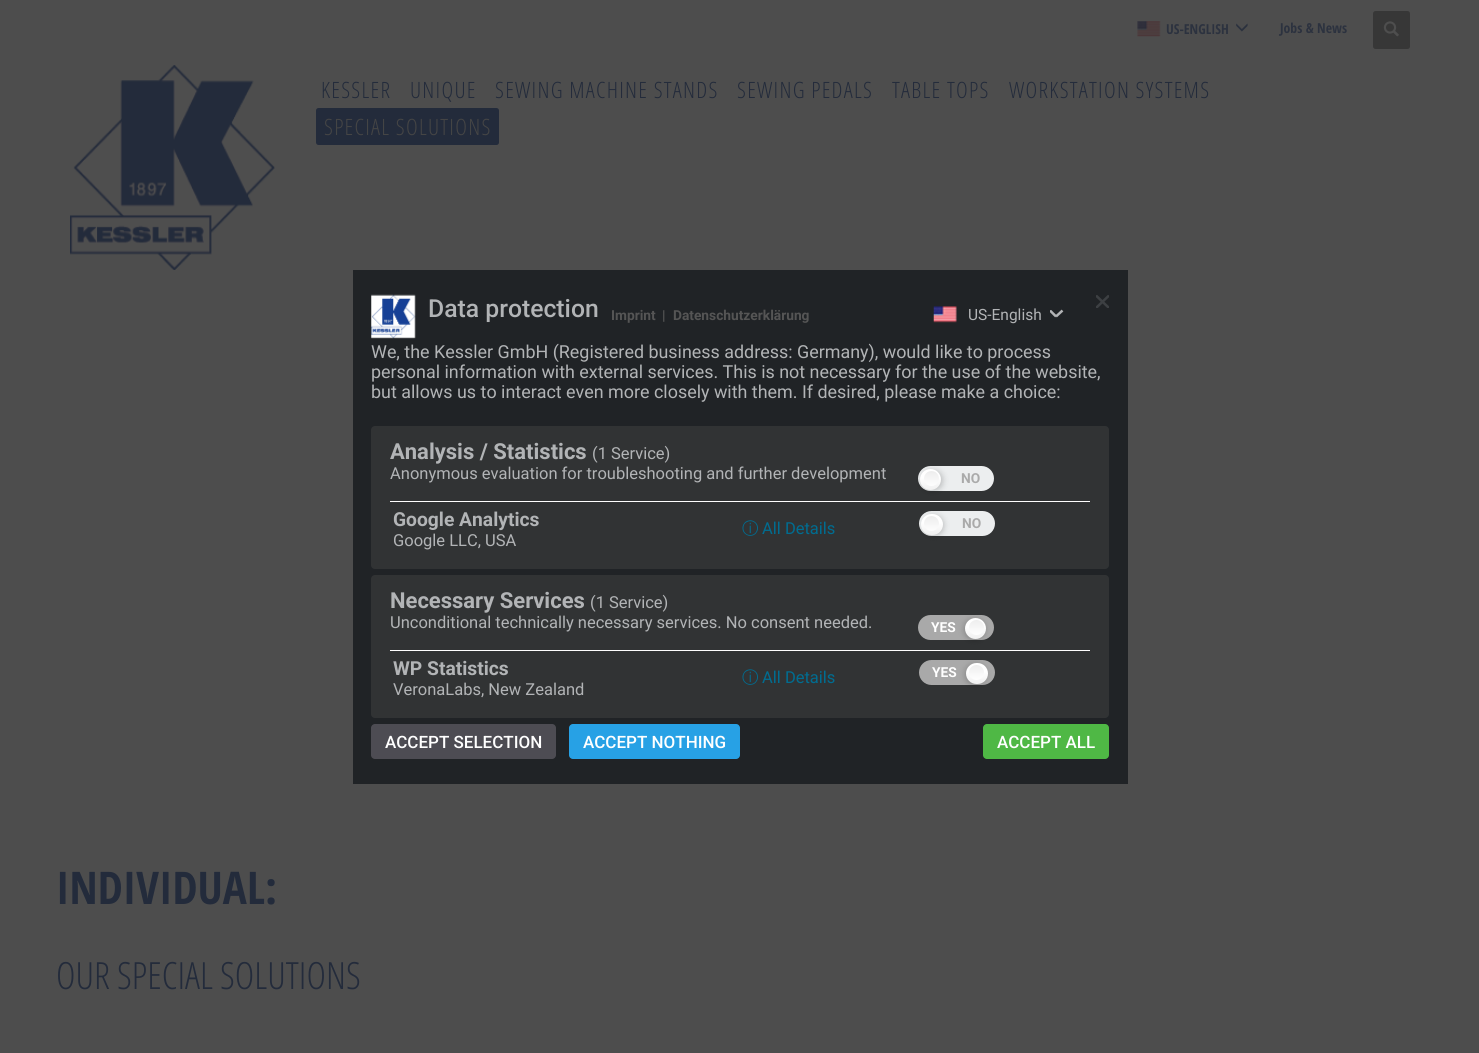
#include <cairo.h>
#include <math.h>
#include <stddef.h>


static void rgb(cairo_t *cr, int r, int g, int b)
{
	cairo_set_source_rgb(cr, r / 255.0, g / 255.0, b / 255.0);
}

static void face(cairo_t *cr, const char *family, double size, int italic, int bold)
{
	cairo_select_font_face(cr, family, italic ? CAIRO_FONT_SLANT_ITALIC : CAIRO_FONT_SLANT_NORMAL,
		bold ? CAIRO_FONT_WEIGHT_BOLD : CAIRO_FONT_WEIGHT_NORMAL);
	cairo_set_font_size(cr, size);
}

static void label(cairo_t *cr, double x, double y, const char *s)
{
	cairo_move_to(cr, x, y);
	cairo_show_text(cr, s);
}

static void tracked(cairo_t *cr, double x, double y, const char *s, double letter, double word)
{
	cairo_move_to(cr, x, y);
	while (*s) {
		char ch[5] = {0};
		int n = 0;
		do ch[n++] = *s++; while ((*s & 0xC0) == 0x80);
		cairo_show_text(cr, ch);
		cairo_rel_move_to(cr, letter + word * (*ch == ' '), 0);
	}
}

static void rect(cairo_t *cr, double x, double y, double w, double h)
{
	cairo_rectangle(cr, x, y, w, h);
	cairo_fill(cr);
}

static void rrect(cairo_t *cr, double x, double y, double w, double h, double r)
{
	cairo_new_sub_path(cr);
	cairo_arc(cr, x + w - r, y + h - r, r, 0, M_PI / 2);
	cairo_arc(cr, x + r, y + h - r, r, M_PI / 2, M_PI);
	cairo_arc(cr, x + r, y + r, r, M_PI, 1.5 * M_PI);
	cairo_arc(cr, x + w - r, y + r, r, 1.5 * M_PI, 2 * M_PI);
	cairo_close_path(cr);
}

static void soft_shadow(cairo_t *cr, double x, double y, double w, double h, double r, double blur, double alpha)
{
	cairo_push_group_with_content(cr, CAIRO_CONTENT_ALPHA);
	cairo_set_operator(cr, CAIRO_OPERATOR_SOURCE);
	for (int i = 15; i >= -15 && fmin(w, h) + blur * i / 3 > 0; i -= 2) {
		double e = blur * i / 6;
		cairo_set_source_rgba(cr, 0, 0, 0, alpha * erfc((i - 1) / 8.5) / 2);
		rrect(cr, x - e, y - e, w + 2 * e, h + 2 * e, fmax(0, fmin(r + e + blur * .6, fmin(w, h) / 2 + e)));
		cairo_fill(cr);
	}
	cairo_pattern_t *soft = cairo_pop_group(cr);
	cairo_mask(cr, soft);
	cairo_pattern_destroy(soft);
}

static void image(cairo_t *cr, const char *path, double x, double y, double w, double h)
{
	cairo_surface_t *image = cairo_image_surface_create_from_png(path);
	cairo_save(cr);
	cairo_set_source_surface(cr, image, x, y);
	cairo_rectangle(cr, x, y, w, h);
	cairo_fill(cr);
	cairo_restore(cr);
	cairo_surface_destroy(image);
}

static void draw(cairo_t *cr) {
	cairo_pattern_t *gradient;
	rgb(cr, 77, 77, 77);
	cairo_paint(cr);
	image(cr, "image0.png", 1137, 21, 24, 16);
	face(cr, "Open Sans Condensed", 13.75, 0, 1);
	rgb(cr, 44, 50, 63);
	label(cr, 1166, 34, "US-ENGLISH");
	image(cr, "image1.png", 1236, 23, 12, 9);
	label(cr, 1280, 33, "Jobs & News");
	rgb(cr, 55, 55, 55);
	rrect(cr, 1373, 11, 37, 38, 2.5);
	cairo_fill(cr);
	image(cr, "image2.png", 1383, 21, 16, 16);
	image(cr, "image3.png", 70, 65, 205, 205);
	face(cr, "Open Sans Condensed Light", 22.5, 0, 0);
	rgb(cr, 35, 43, 59);
	tracked(cr, 321, 98, "KESSLER", 1.25, 0);
	tracked(cr, 410, 98, "UNIQUE", 1.25, 0);
	tracked(cr, 495, 98, "SEWING MACHINE STANDS", 1.25, 0);
	tracked(cr, 737, 98, "SEWING PEDALS", 1.25, 0);
	tracked(cr, 892, 98, "TABLE TOPS", 1.25, 0);
	tracked(cr, 1009, 98, "WORKSTATION SYSTEMS", 1.25, 0);
	rrect(cr, 316, 108, 183, 37, 2.5);
	cairo_fill(cr);
	rgb(cr, 69, 69, 69);
	tracked(cr, 324, 135, "SPECIAL SOLUTIONS", 1.25, 0);
	face(cr, "Open Sans Condensed", 45, 0, 1);
	rgb(cr, 35, 43, 59);
	label(cr, 56, 904, "INDIVIDUAL:");
	face(cr, "Open Sans Condensed Light", 37.5, 0, 0);
	label(cr, 56, 989, "OUR SPECIAL SOLUTIONS");
	rgb(cr, 32, 35, 38);
	rect(cr, 353, 270, 775, 514);
	image(cr, "image4.png", 371, 294, 45, 45);
	face(cr, "Roboto Medium", 24.75, 0, 0);
	rgb(cr, 178, 180, 182);
	label(cr, 428, 317, "Data protection");
	face(cr, "Roboto", 13.75, 0, 1);
	rgb(cr, 85, 85, 85);
	label(cr, 611, 320, "Imprint");
	label(cr, 662, 320, "|");
	label(cr, 673, 320, "Datenschutzerklärung");
	image(cr, "image5.png", 933, 306, 24, 17);
	face(cr, "Roboto", 15.5, 0, 0);
	rgb(cr, 178, 180, 182);
	label(cr, 968, 320, "US-English");
	cairo_save(cr);
	cairo_rectangle(cr, 1050, 310, 13, 8);
	cairo_clip(cr);
	cairo_new_path(cr);
	cairo_move_to(cr, 1050, 310.5);
	cairo_line_to(cr, 1056, 316.5);
	cairo_set_line_width(cr, 2.5);
	cairo_stroke(cr);
	cairo_restore(cr);
	cairo_new_path(cr);
	cairo_move_to(cr, 1056, 316.5);
	cairo_line_to(cr, 1062.5, 310.5);
	cairo_set_line_width(cr, 2.5);
	cairo_stroke(cr);
	cairo_save(cr);
	cairo_rectangle(cr, 1096, 295, 13, 13);
	cairo_clip(cr);
	cairo_new_path(cr);
	cairo_move_to(cr, 1096, 295.5);
	cairo_line_to(cr, 1109, 308);
	cairo_move_to(cr, 1096, 308);
	cairo_line_to(cr, 1109, 295.5);
	rgb(cr, 61, 64, 67);
	cairo_stroke(cr);
	cairo_restore(cr);
	face(cr, "Roboto", 17.9, 0, 0);
	label(cr, 371, 358, "We, the Kessler GmbH (Registered business address: Germany), would like to process");
	label(cr, 371, 378, "personal information with external services. This is not necessary for the use of the website,");
	label(cr, 371, 398, "but allows us to interact even more closely with them. If desired, please make a choice:");
	rgb(cr, 49, 51, 52);
	rrect(cr, 371, 426, 738, 143, 4);
	cairo_fill(cr);
	face(cr, "Roboto", 22, 0, 1);
	rgb(cr, 178, 180, 182);
	label(cr, 390, 459, "Analysis / Statistics");
	face(cr, "Roboto", 16.5, 0, 0);
	label(cr, 592, 459, "(1 Service)");
	label(cr, 390, 479, "Anonymous evaluation for troubleshooting and further development");
	rgb(cr, 236, 238, 239);
	rrect(cr, 918, 466, 76, 25, 12.5);
	cairo_fill(cr);
	rgb(cr, 0, 0, 0);
	soft_shadow(cr, 921, 470, 22, 21, 10.5, 3, 0.2);
	gradient = cairo_pattern_create_linear(931, 469, 931, 490);
	cairo_pattern_add_color_stop_rgba(gradient, 0.4, 1, 1, 1, 1);
	cairo_pattern_add_color_stop_rgba(gradient, 1, 0.941, 0.941, 0.941, 1);
	cairo_set_source(cr, gradient);
	cairo_pattern_destroy(gradient);
	cairo_arc(cr, 930.5, 479.5, 10.5, 0, 2 * M_PI);
	cairo_fill(cr);
	gradient = cairo_pattern_create_linear(931, 472, 931, 487);
	cairo_pattern_add_color_stop_rgba(gradient, 0, 0.933, 0.933, 0.933, 1);
	cairo_pattern_add_color_stop_rgba(gradient, 1, 1, 1, 1, 1);
	cairo_set_source(cr, gradient);
	cairo_pattern_destroy(gradient);
	cairo_arc(cr, 931.5, 478.5, 7.5, 0, 2 * M_PI);
	cairo_fill(cr);
	face(cr, "Roboto", 13.75, 0, 1);
	rgb(cr, 170, 170, 170);
	label(cr, 961, 483, "NO");
	rgb(cr, 255, 255, 255);
	rect(cr, 390, 501, 700, 1);
	face(cr, "Roboto", 19.25, 0, 1);
	rgb(cr, 178, 180, 182);
	label(cr, 393, 526, "Google Analytics");
	face(cr, "Roboto", 16.5, 0, 0);
	label(cr, 393, 546, "Google LLC, USA");
	face(cr, "WenQuanYi Zen Hei Medium", 16.5, 0, 0);
	rgb(cr, 0, 109, 145);
	label(cr, 742, 534, "ⓘ");
	face(cr, "Roboto", 16.5, 0, 0);
	label(cr, 762, 534, "All Details");
	rgb(cr, 236, 238, 239);
	rrect(cr, 919, 511, 76, 25, 12.5);
	cairo_fill(cr);
	rgb(cr, 0, 0, 0);
	soft_shadow(cr, 923, 515, 21, 21, 10.5, 3, 0.2);
	gradient = cairo_pattern_create_linear(932, 514, 932, 535);
	cairo_pattern_add_color_stop_rgba(gradient, 0.4, 1, 1, 1, 1);
	cairo_pattern_add_color_stop_rgba(gradient, 1, 0.941, 0.941, 0.941, 1);
	cairo_set_source(cr, gradient);
	cairo_pattern_destroy(gradient);
	rrect(cr, 921, 514, 22, 21, 10.5);
	cairo_fill(cr);
	gradient = cairo_pattern_create_linear(931, 517, 931, 532);
	cairo_pattern_add_color_stop_rgba(gradient, 0, 0.933, 0.933, 0.933, 1);
	cairo_pattern_add_color_stop_rgba(gradient, 1, 1, 1, 1, 1);
	cairo_set_source(cr, gradient);
	cairo_pattern_destroy(gradient);
	cairo_arc(cr, 931.5, 523.5, 7.5, 0, 2 * M_PI);
	cairo_fill(cr);
	face(cr, "Roboto", 13.75, 0, 1);
	rgb(cr, 170, 170, 170);
	label(cr, 962, 528, "NO");
	rgb(cr, 49, 51, 52);
	rrect(cr, 371, 575, 738, 143, 4);
	cairo_fill(cr);
	face(cr, "Roboto", 22, 0, 1);
	rgb(cr, 178, 180, 182);
	label(cr, 390, 608, "Necessary Services");
	face(cr, "Roboto", 16.5, 0, 0);
	label(cr, 590, 608, "(1 Service)");
	label(cr, 390, 628, "Unconditional technically necessary services. No consent needed.");
	rgb(cr, 169, 169, 169);
	rrect(cr, 918, 615, 76, 25, 12.5);
	cairo_fill(cr);
	face(cr, "Roboto", 13.75, 0, 1);
	rgb(cr, 255, 255, 255);
	label(cr, 931, 632, "YES");
	rgb(cr, 0, 0, 0);
	soft_shadow(cr, 964, 619, 21, 21, 10.5, 3, 0.2);
	gradient = cairo_pattern_create_linear(976, 618, 976, 639);
	cairo_pattern_add_color_stop_rgba(gradient, 0.4, 1, 1, 1, 1);
	cairo_pattern_add_color_stop_rgba(gradient, 1, 0.941, 0.941, 0.941, 1);
	cairo_set_source(cr, gradient);
	cairo_pattern_destroy(gradient);
	cairo_arc(cr, 975.5, 628.5, 10.5, 0, 2 * M_PI);
	cairo_fill(cr);
	gradient = cairo_pattern_create_linear(976, 620, 976, 635);
	cairo_pattern_add_color_stop_rgba(gradient, 0, 0.933, 0.933, 0.933, 1);
	cairo_pattern_add_color_stop_rgba(gradient, 1, 1, 1, 1, 1);
	cairo_set_source(cr, gradient);
	cairo_pattern_destroy(gradient);
	cairo_arc(cr, 976.5, 627.5, 7.5, 0, 2 * M_PI);
	cairo_fill(cr);
	rgb(cr, 255, 255, 255);
	rect(cr, 390, 650, 700, 1);
	face(cr, "Roboto", 19.25, 0, 1);
	rgb(cr, 178, 180, 182);
	label(cr, 393, 675, "WP Statistics");
	face(cr, "Roboto", 16.5, 0, 0);
	label(cr, 393, 695, "VeronaLabs, New Zealand");
	face(cr, "WenQuanYi Zen Hei Medium", 16.5, 0, 0);
	rgb(cr, 0, 109, 145);
	label(cr, 742, 683, "ⓘ");
	face(cr, "Roboto", 16.5, 0, 0);
	label(cr, 762, 683, "All Details");
	rgb(cr, 169, 169, 169);
	rrect(cr, 919, 660, 76, 25, 12.5);
	cairo_fill(cr);
	face(cr, "Roboto", 13.75, 0, 1);
	rgb(cr, 255, 255, 255);
	label(cr, 932, 677, "YES");
	rgb(cr, 0, 0, 0);
	soft_shadow(cr, 965, 664, 21, 21, 10.5, 3, 0.2);
	gradient = cairo_pattern_create_linear(977, 663, 977, 684);
	cairo_pattern_add_color_stop_rgba(gradient, 0.4, 1, 1, 1, 1);
	cairo_pattern_add_color_stop_rgba(gradient, 1, 0.941, 0.941, 0.941, 1);
	cairo_set_source(cr, gradient);
	cairo_pattern_destroy(gradient);
	rrect(cr, 966, 663, 22, 21, 10.5);
	cairo_fill(cr);
	gradient = cairo_pattern_create_linear(976, 665, 976, 680);
	cairo_pattern_add_color_stop_rgba(gradient, 0, 0.933, 0.933, 0.933, 1);
	cairo_pattern_add_color_stop_rgba(gradient, 1, 1, 1, 1, 1);
	cairo_set_source(cr, gradient);
	cairo_pattern_destroy(gradient);
	cairo_arc(cr, 976.5, 672.5, 7.5, 0, 2 * M_PI);
	cairo_fill(cr);
	rgb(cr, 77, 76, 83);
	rrect(cr, 371, 724, 185, 35, 4);
	cairo_fill(cr);
	face(cr, "Roboto Medium", 17, 0, 0);
	rgb(cr, 255, 255, 255);
	label(cr, 385, 748, "ACCEPT SELECTION");
	rgb(cr, 39, 161, 229);
	rrect(cr, 569, 724, 171, 35, 4);
	cairo_fill(cr);
	rgb(cr, 255, 255, 255);
	label(cr, 583, 748, "ACCEPT NOTHING");
	rgb(cr, 79, 184, 69);
	rrect(cr, 983, 724, 126, 35, 4);
	cairo_fill(cr);
	rgb(cr, 255, 255, 255);
	label(cr, 997, 748, "ACCEPT ALL");
}

int main(void) {
	cairo_surface_t *surface = cairo_image_surface_create(CAIRO_FORMAT_RGB24, 1479, 1053);
	cairo_t *cr = cairo_create(surface);
	cairo_font_options_t *options = cairo_font_options_create();
	cairo_font_options_set_hint_metrics(options, CAIRO_HINT_METRICS_OFF);
	cairo_font_options_set_hint_style(options, CAIRO_HINT_STYLE_NONE);
	cairo_set_font_options(cr, options);
	cairo_set_miter_limit(cr, 4);
	draw(cr);
	cairo_surface_write_to_png(surface, "render.png");
	cairo_font_options_destroy(options);
	cairo_destroy(cr);
	cairo_surface_destroy(surface);
	return 0;
}
